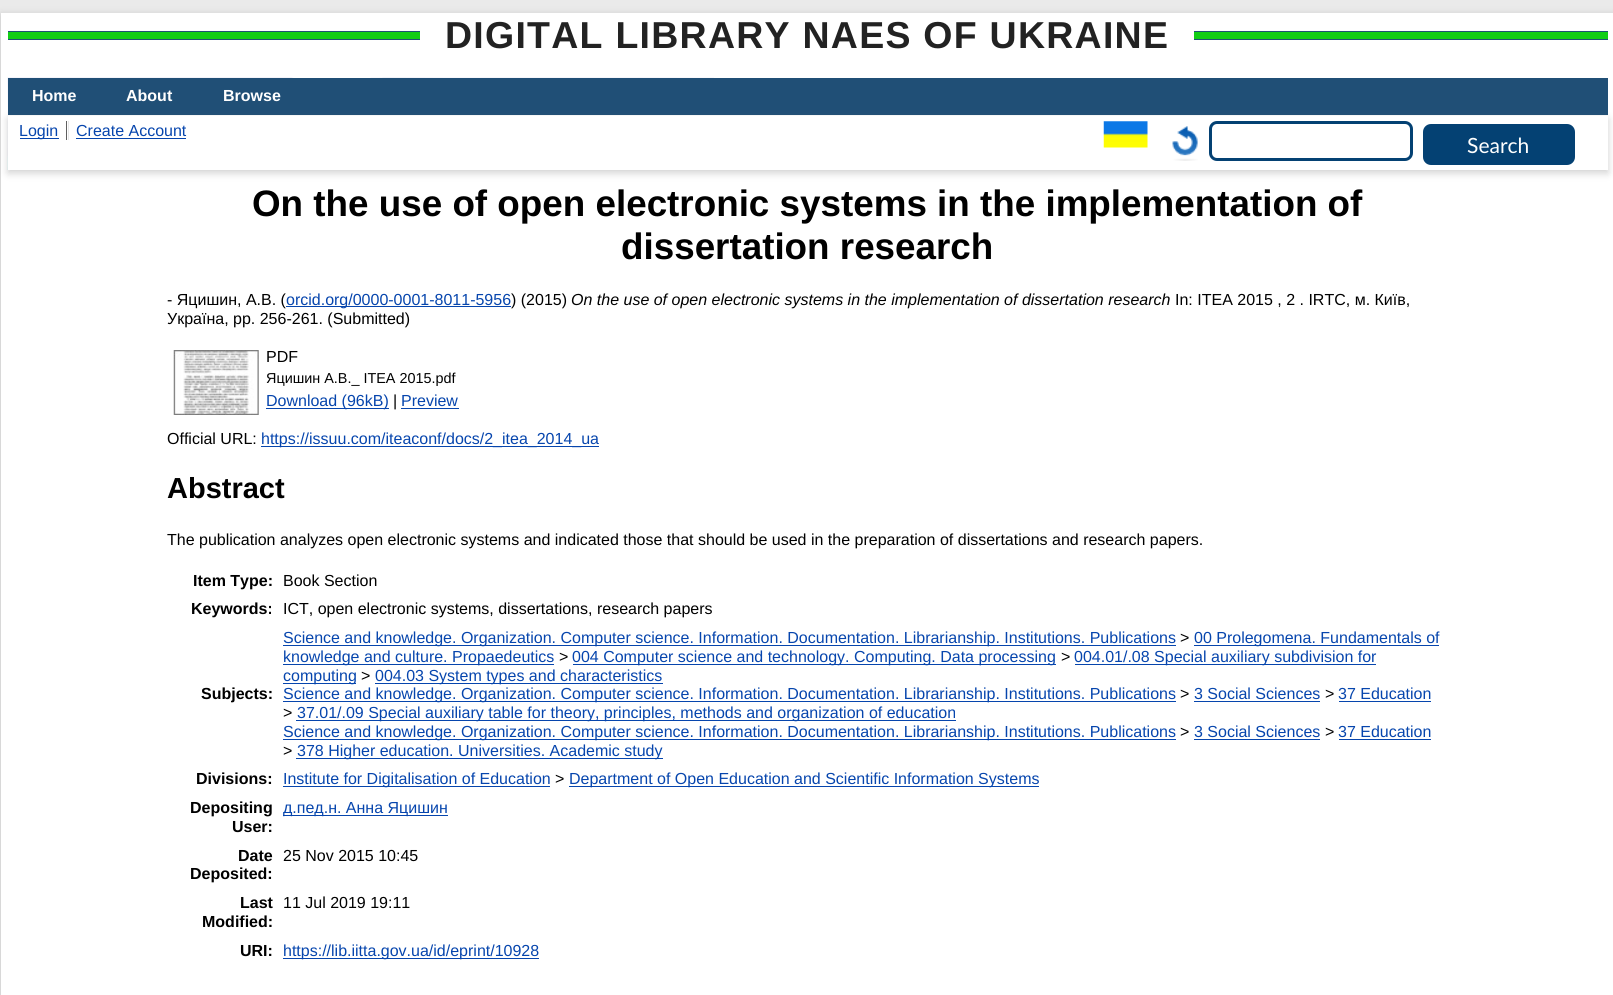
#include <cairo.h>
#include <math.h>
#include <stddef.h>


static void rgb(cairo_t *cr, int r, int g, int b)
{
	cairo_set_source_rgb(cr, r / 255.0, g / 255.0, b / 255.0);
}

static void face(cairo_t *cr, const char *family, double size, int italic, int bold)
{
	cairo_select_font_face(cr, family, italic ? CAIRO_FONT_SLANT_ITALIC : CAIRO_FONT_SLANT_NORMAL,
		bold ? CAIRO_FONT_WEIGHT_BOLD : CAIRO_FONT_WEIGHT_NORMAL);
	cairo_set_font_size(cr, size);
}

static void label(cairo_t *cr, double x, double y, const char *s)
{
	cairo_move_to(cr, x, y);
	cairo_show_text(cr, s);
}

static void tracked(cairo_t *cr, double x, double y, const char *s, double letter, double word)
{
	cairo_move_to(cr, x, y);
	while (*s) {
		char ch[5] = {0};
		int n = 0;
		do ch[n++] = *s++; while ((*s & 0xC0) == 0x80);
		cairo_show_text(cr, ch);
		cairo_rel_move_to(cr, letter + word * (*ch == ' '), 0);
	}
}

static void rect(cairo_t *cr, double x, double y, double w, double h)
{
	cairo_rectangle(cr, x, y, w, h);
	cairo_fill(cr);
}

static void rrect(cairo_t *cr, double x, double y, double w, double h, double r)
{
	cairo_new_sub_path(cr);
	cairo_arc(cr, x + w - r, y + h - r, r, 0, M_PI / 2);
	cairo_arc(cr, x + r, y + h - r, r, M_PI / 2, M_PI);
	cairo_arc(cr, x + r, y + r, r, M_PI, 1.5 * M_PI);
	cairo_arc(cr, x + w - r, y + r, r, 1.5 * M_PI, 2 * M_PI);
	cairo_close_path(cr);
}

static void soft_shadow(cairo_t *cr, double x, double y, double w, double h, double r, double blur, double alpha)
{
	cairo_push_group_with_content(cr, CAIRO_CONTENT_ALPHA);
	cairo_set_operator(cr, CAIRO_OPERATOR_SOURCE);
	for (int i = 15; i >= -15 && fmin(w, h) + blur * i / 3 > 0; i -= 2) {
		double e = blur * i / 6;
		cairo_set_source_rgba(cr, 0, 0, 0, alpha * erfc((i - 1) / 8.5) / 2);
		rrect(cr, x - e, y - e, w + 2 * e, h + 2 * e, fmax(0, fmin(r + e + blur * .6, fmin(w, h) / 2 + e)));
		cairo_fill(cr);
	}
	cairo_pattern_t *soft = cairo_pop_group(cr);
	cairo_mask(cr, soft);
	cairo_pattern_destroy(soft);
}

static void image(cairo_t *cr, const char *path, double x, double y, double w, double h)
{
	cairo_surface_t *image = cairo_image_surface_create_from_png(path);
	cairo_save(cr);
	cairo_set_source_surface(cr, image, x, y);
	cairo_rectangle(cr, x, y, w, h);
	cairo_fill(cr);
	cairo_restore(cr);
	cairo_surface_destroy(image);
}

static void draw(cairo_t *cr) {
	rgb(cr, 234, 234, 234);
	cairo_paint(cr);
	rgb(cr, 100, 100, 100);
	soft_shadow(cr, 1, 15, 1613, 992, 0, 4, 0.3);
	rgb(cr, 255, 255, 255);
	rect(cr, 1, 13, 1612, 982);
	rgb(cr, 18, 206, 21);
	rect(cr, 8, 32, 412, 7);
	rgb(cr, 32, 79, 118);
	rect(cr, 8, 31, 412, 1);
	rect(cr, 8, 39, 412, 1);
	face(cr, "Liberation Sans", 37.5, 0, 1);
	rgb(cr, 34, 34, 34);
	tracked(cr, 445, 48, "DIGITAL LIBRARY NAES OF UKRAINE", 1.25, 0);
	rgb(cr, 18, 206, 21);
	rect(cr, 1194, 32, 414, 7);
	rgb(cr, 32, 79, 118);
	rect(cr, 1194, 31, 414, 1);
	rect(cr, 1194, 39, 414, 1);
	image(cr, "image0.png", 7, 77, 707, 93);
	rect(cr, 8, 78, 1600, 37);
	rgb(cr, 255, 255, 255);
	rect(cr, 8, 115, 706, 1);
	face(cr, "Liberation Sans", 16, 0, 1);
	label(cr, 32, 101, "Home");
	label(cr, 126, 101, "About");
	label(cr, 223, 101, "Browse");
	rgb(cr, 100, 100, 100);
	soft_shadow(cr, 8, 119, 1600, 54, 0, 4, 0.3);
	rgb(cr, 255, 255, 255);
	rect(cr, 8, 116, 1600, 54);
	rgb(cr, 96, 96, 96);
	rect(cr, 66, 121, 1, 19);
	rgb(cr, 6, 69, 173);
	rect(cr, 20, 138, 39, 1);
	face(cr, "Liberation Sans", 16, 0, 0);
	label(cr, 19, 136, "Login");
	rgb(cr, 232, 232, 232);
	rect(cr, 68, 121, 1, 19);
	rgb(cr, 6, 69, 173);
	label(cr, 76, 136, "Create Account");
	rect(cr, 76, 138, 110, 1);
	image(cr, "image1.png", 1103, 121, 45, 27);
	image(cr, "image2.png", 1172, 126, 26, 35);
	rrect(cr, 1210.5, 122.5, 201, 37, 6.5);
	rgb(cr, 4, 65, 115);
	cairo_set_line_width(cr, 3);
	cairo_stroke(cr);
	rrect(cr, 1423, 124, 152, 41, 8);
	cairo_fill(cr);
	face(cr, "Lato", 21, 0, 0);
	rgb(cr, 255, 255, 255);
	label(cr, 1467, 153, "Search");
	face(cr, "Liberation Sans", 36.8, 0, 1);
	rgb(cr, 0, 0, 0);
	label(cr, 252, 216, "On the use of open electronic systems in the implementation of");
	label(cr, 621, 259, "dissertation research");
	face(cr, "Liberation Sans", 16, 0, 0);
	label(cr, 167, 305, "- Яцишин, А.В. (");
	rgb(cr, 6, 69, 173);
	rect(cr, 286, 306, 225, 1);
	label(cr, 286, 305, "orcid.org/0000-0001-8011-5956");
	rgb(cr, 0, 0, 0);
	label(cr, 511, 305, ") (2015)");
	face(cr, "Liberation Sans", 16, 1, 0);
	label(cr, 571, 305, "On the use of open electronic systems in the implementation of dissertation research");
	face(cr, "Liberation Sans", 16, 0, 0);
	label(cr, 1175, 305, "In: ІТЕА 2015 , 2 . ІRTC, м. Київ,");
	label(cr, 167, 324, "Україна, pp. 256-261. (Submitted)");
	image(cr, "image3.png", 173, 350, 86, 65);
	label(cr, 266, 362, "PDF");
	face(cr, "Liberation Sans", 14.4, 0, 0);
	label(cr, 266, 383, "Яцишин А.В._ ІТЕА 2015.pdf");
	rgb(cr, 6, 69, 173);
	rect(cr, 266, 408, 123, 1);
	face(cr, "Liberation Sans", 16, 0, 0);
	label(cr, 266, 406, "Download (96kB)");
	rgb(cr, 0, 0, 0);
	label(cr, 393, 406, "|");
	rgb(cr, 6, 69, 173);
	label(cr, 401, 406, "Preview");
	rect(cr, 401, 408, 58, 1);
	rgb(cr, 0, 0, 0);
	label(cr, 167, 444, "Official URL:");
	rgb(cr, 6, 69, 173);
	rect(cr, 261, 446, 338, 1);
	label(cr, 261, 444, "https://issuu.com/iteaconf/docs/2_itea_2014_ua");
	face(cr, "Liberation Sans", 29, 0, 1);
	rgb(cr, 0, 0, 0);
	label(cr, 167, 498, "Abstract");
	face(cr, "Liberation Sans", 16, 0, 0);
	label(cr, 167, 545, "The publication analyzes open electronic systems and indicated those that should be used in the preparation of dissertations and research papers.");
	face(cr, "Liberation Sans", 16, 0, 1);
	label(cr, 193, 586, "Item Type:");
	face(cr, "Liberation Sans", 16, 0, 0);
	label(cr, 283, 586, "Book Section");
	face(cr, "Liberation Sans", 16, 0, 1);
	label(cr, 191, 614, "Keywords:");
	face(cr, "Liberation Sans", 16, 0, 0);
	label(cr, 283, 614, "ICT, open electronic systems, dissertations, research papers");
	face(cr, "Liberation Sans", 16, 0, 1);
	label(cr, 201, 699, "Subjects:");
	rgb(cr, 6, 69, 173);
	rect(cr, 283, 645, 893, 1);
	face(cr, "Liberation Sans", 16, 0, 0);
	label(cr, 283, 643, "Science and knowledge. Organization. Computer science. Information. Documentation. Librarianship. Institutions. Publications");
	rgb(cr, 0, 0, 0);
	label(cr, 1180, 643, ">");
	rgb(cr, 6, 69, 173);
	rect(cr, 1194, 645, 245, 1);
	label(cr, 1194, 643, "00 Prolegomena. Fundamentals of");
	rect(cr, 283, 664, 271, 1);
	label(cr, 283, 662, "knowledge and culture. Propaedeutics");
	rgb(cr, 0, 0, 0);
	label(cr, 559, 662, ">");
	rgb(cr, 6, 69, 173);
	rect(cr, 573, 664, 483, 1);
	label(cr, 572, 662, "004 Computer science and technology. Computing. Data processing");
	rgb(cr, 0, 0, 0);
	label(cr, 1061, 662, ">");
	rgb(cr, 6, 69, 173);
	rect(cr, 1075, 664, 301, 1);
	label(cr, 1074, 662, "004.01/.08 Special auxiliary subdivision for");
	rect(cr, 283, 683, 73, 1);
	label(cr, 283, 681, "computing");
	rgb(cr, 0, 0, 0);
	label(cr, 361, 681, ">");
	rgb(cr, 6, 69, 173);
	rect(cr, 375, 683, 288, 1);
	label(cr, 375, 681, "004.03 System types and characteristics");
	rect(cr, 283, 701, 893, 1);
	label(cr, 283, 699, "Science and knowledge. Organization. Computer science. Information. Documentation. Librarianship. Institutions. Publications");
	rgb(cr, 0, 0, 0);
	label(cr, 1180, 699, ">");
	rgb(cr, 6, 69, 173);
	label(cr, 1194, 699, "3 Social Sciences");
	rect(cr, 1194, 701, 126, 1);
	rgb(cr, 0, 0, 0);
	label(cr, 1325, 699, ">");
	rgb(cr, 6, 69, 173);
	label(cr, 1338, 699, "37 Education");
	rect(cr, 1339, 701, 92, 1);
	rgb(cr, 0, 0, 0);
	label(cr, 283, 718, ">");
	rgb(cr, 6, 69, 173);
	rect(cr, 296, 720, 660, 1);
	label(cr, 297, 718, "37.01/.09 Special auxiliary table for theory, principles, methods and organization of education");
	rect(cr, 283, 739, 893, 1);
	label(cr, 283, 737, "Science and knowledge. Organization. Computer science. Information. Documentation. Librarianship. Institutions. Publications");
	rgb(cr, 0, 0, 0);
	label(cr, 1180, 737, ">");
	rgb(cr, 6, 69, 173);
	label(cr, 1194, 737, "3 Social Sciences");
	rect(cr, 1194, 739, 126, 1);
	rgb(cr, 0, 0, 0);
	label(cr, 1325, 737, ">");
	rgb(cr, 6, 69, 173);
	label(cr, 1338, 737, "37 Education");
	rect(cr, 1339, 739, 92, 1);
	rgb(cr, 0, 0, 0);
	label(cr, 283, 756, ">");
	rgb(cr, 6, 69, 173);
	rect(cr, 296, 758, 367, 1);
	label(cr, 297, 756, "378 Higher education. Universities. Academic study");
	face(cr, "Liberation Sans", 16, 0, 1);
	rgb(cr, 0, 0, 0);
	label(cr, 196, 784, "Divisions:");
	rgb(cr, 6, 69, 173);
	rect(cr, 283, 786, 267, 1);
	face(cr, "Liberation Sans", 16, 0, 0);
	label(cr, 283, 784, "Institute for Digitalisation of Education");
	rgb(cr, 0, 0, 0);
	label(cr, 555, 784, ">");
	rgb(cr, 6, 69, 173);
	rect(cr, 569, 786, 470, 1);
	label(cr, 569, 784, "Department of Open Education and Scientific Information Systems");
	face(cr, "Liberation Sans", 16, 0, 1);
	rgb(cr, 0, 0, 0);
	label(cr, 190, 813, "Depositing");
	label(cr, 232, 832, "User:");
	rgb(cr, 6, 69, 173);
	rect(cr, 283, 815, 165, 1);
	face(cr, "Liberation Sans", 16, 0, 0);
	label(cr, 283, 813, "д.пед.н. Анна Яцишин");
	face(cr, "Liberation Sans", 16, 0, 1);
	rgb(cr, 0, 0, 0);
	label(cr, 238, 861, "Date");
	label(cr, 190, 879, "Deposited:");
	face(cr, "Liberation Sans", 16, 0, 0);
	label(cr, 283, 861, "25 Nov 2015 10:45");
	face(cr, "Liberation Sans", 16, 0, 1);
	label(cr, 240, 908, "Last");
	label(cr, 202, 927, "Modified:");
	face(cr, "Liberation Sans", 16, 0, 0);
	label(cr, 283, 908, "11 Jul 2019 19:11");
	face(cr, "Liberation Sans", 16, 0, 1);
	label(cr, 240, 956, "URI:");
	rgb(cr, 6, 69, 173);
	rect(cr, 283, 958, 256, 1);
	face(cr, "Liberation Sans", 16, 0, 0);
	label(cr, 283, 956, "https://lib.iitta.gov.ua/id/eprint/10928");
}

int main(void) {
	cairo_surface_t *surface = cairo_image_surface_create(CAIRO_FORMAT_RGB24, 1613, 995);
	cairo_t *cr = cairo_create(surface);
	cairo_font_options_t *options = cairo_font_options_create();
	cairo_font_options_set_hint_metrics(options, CAIRO_HINT_METRICS_OFF);
	cairo_font_options_set_hint_style(options, CAIRO_HINT_STYLE_NONE);
	cairo_set_font_options(cr, options);
	cairo_set_miter_limit(cr, 4);
	draw(cr);
	cairo_surface_write_to_png(surface, "render.png");
	cairo_font_options_destroy(options);
	cairo_destroy(cr);
	cairo_surface_destroy(surface);
	return 0;
}
